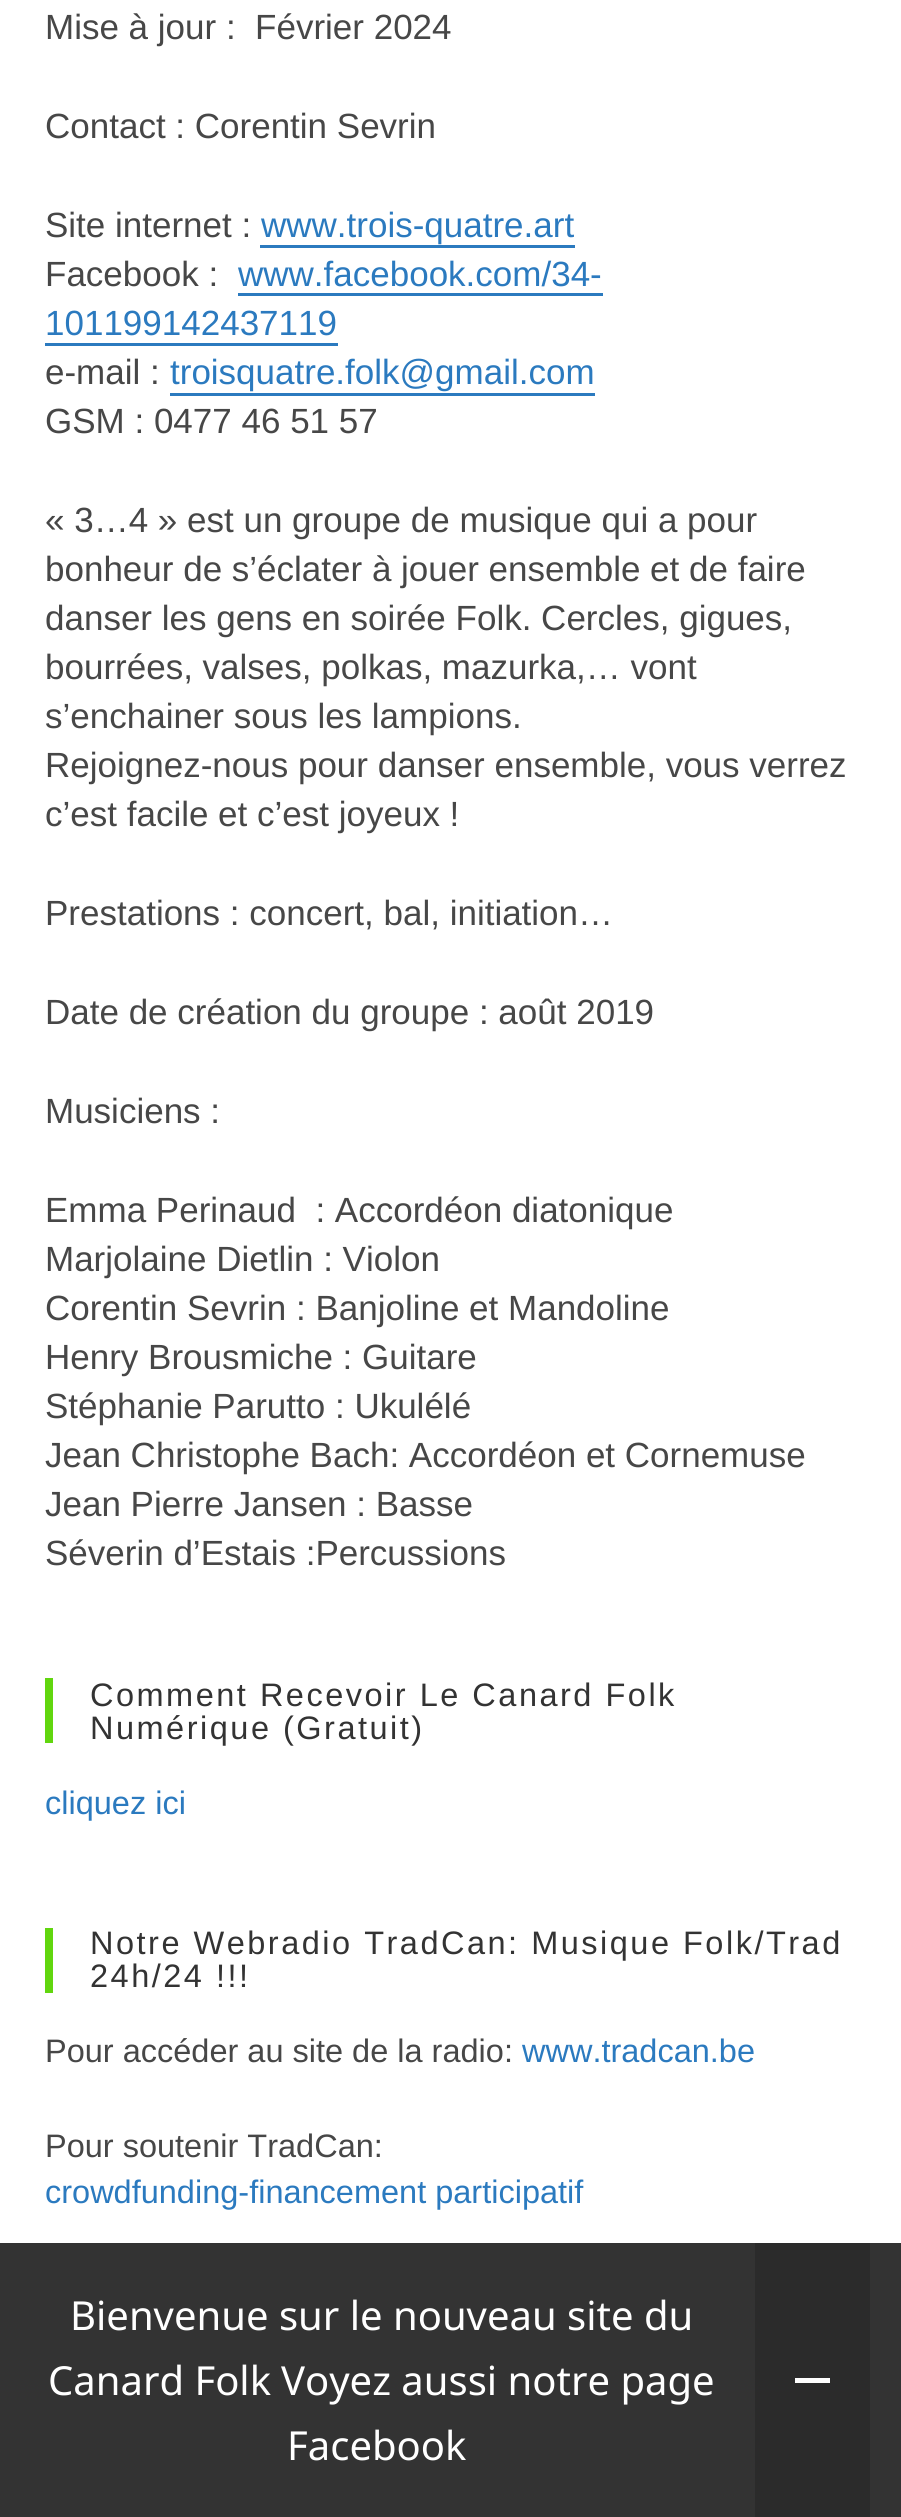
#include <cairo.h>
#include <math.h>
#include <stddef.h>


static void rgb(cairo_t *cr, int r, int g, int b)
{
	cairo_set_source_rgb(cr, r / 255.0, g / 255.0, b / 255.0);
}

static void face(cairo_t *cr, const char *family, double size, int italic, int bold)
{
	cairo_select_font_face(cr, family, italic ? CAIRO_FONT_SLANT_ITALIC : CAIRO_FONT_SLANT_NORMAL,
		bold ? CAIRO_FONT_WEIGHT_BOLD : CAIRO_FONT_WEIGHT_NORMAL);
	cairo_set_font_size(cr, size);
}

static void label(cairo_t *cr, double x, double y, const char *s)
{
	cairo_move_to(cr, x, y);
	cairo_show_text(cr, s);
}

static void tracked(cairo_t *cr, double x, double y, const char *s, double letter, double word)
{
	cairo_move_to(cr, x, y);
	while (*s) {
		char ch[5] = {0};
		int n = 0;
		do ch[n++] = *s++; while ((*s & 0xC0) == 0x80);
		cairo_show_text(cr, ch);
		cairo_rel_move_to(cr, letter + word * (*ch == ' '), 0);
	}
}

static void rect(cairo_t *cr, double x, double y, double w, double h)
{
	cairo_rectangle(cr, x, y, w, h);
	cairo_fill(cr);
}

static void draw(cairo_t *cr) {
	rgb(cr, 255, 255, 255);
	cairo_paint(cr);
	face(cr, "Liberation Sans", 35, 0, 0);
	rgb(cr, 71, 71, 71);
	label(cr, 45, 39, "Mise à jour :  Février 2024");
	label(cr, 45, 138, "Contact : Corentin Sevrin");
	label(cr, 45, 237, "Site internet :");
	rgb(cr, 43, 122, 191);
	label(cr, 261, 237, "www.trois-quatre.art");
	rect(cr, 260, 245, 315, 3);
	rgb(cr, 71, 71, 71);
	label(cr, 45, 286, "Facebook :");
	rgb(cr, 43, 122, 191);
	label(cr, 238, 286, "www.facebook.com/34-");
	rect(cr, 238, 293, 365, 3);
	label(cr, 45, 335, "101199142437119");
	rect(cr, 45, 343, 293, 3);
	rgb(cr, 71, 71, 71);
	label(cr, 45, 384, "e-mail :");
	rgb(cr, 43, 122, 191);
	label(cr, 170, 384, "troisquatre.folk@gmail.com");
	rect(cr, 170, 393, 425, 3);
	rgb(cr, 71, 71, 71);
	label(cr, 45, 433, "GSM : 0477 46 51 57");
	label(cr, 45, 532, "« 3…4 » est un groupe de musique qui a pour");
	label(cr, 45, 581, "bonheur de s’éclater à jouer ensemble et de faire");
	label(cr, 45, 630, "danser les gens en soirée Folk. Cercles, gigues,");
	label(cr, 45, 679, "bourrées, valses, polkas, mazurka,… vont");
	label(cr, 45, 728, "s’enchainer sous les lampions.");
	label(cr, 45, 777, "Rejoignez-nous pour danser ensemble, vous verrez");
	label(cr, 45, 826, "c’est facile et c’est joyeux !");
	label(cr, 45, 925, "Prestations : concert, bal, initiation…");
	label(cr, 45, 1024, "Date de création du groupe : août 2019");
	label(cr, 45, 1123, "Musiciens :");
	label(cr, 45, 1222, "Emma Perinaud  : Accordéon diatonique");
	label(cr, 45, 1271, "Marjolaine Dietlin : Violon");
	label(cr, 45, 1320, "Corentin Sevrin : Banjoline et Mandoline");
	label(cr, 45, 1369, "Henry Brousmiche : Guitare");
	label(cr, 45, 1418, "Stéphanie Parutto : Ukulélé");
	label(cr, 45, 1467, "Jean Christophe Bach: Accordéon et Cornemuse");
	label(cr, 45, 1516, "Jean Pierre Jansen : Basse");
	label(cr, 45, 1565, "Séverin d’Estais :Percussions");
	rgb(cr, 97, 214, 14);
	rect(cr, 45, 1678, 8, 65);
	face(cr, "Liberation Sans", 32.5, 0, 0);
	rgb(cr, 51, 51, 51);
	tracked(cr, 90, 1706, "Comment Recevoir Le Canard Folk", 2.5, 0);
	tracked(cr, 90, 1739, "Numérique (Gratuit)", 2.5, 0);
	rgb(cr, 43, 122, 191);
	label(cr, 45, 1814, "cliquez ici");
	rgb(cr, 97, 214, 14);
	rect(cr, 45, 1928, 8, 65);
	rgb(cr, 51, 51, 51);
	tracked(cr, 90, 1954, "Notre Webradio TradCan: Musique Folk/Trad", 2.5, 0);
	tracked(cr, 90, 1987, "24h/24 !!!", 2.5, 0);
	rgb(cr, 71, 71, 71);
	label(cr, 45, 2062, "Pour accéder au site de la radio:");
	rgb(cr, 43, 122, 191);
	label(cr, 522, 2062, "www.tradcan.be");
	rgb(cr, 71, 71, 71);
	label(cr, 45, 2157, "Pour soutenir TradCan:");
	rgb(cr, 43, 122, 191);
	label(cr, 45, 2203, "crowdfunding-financement participatif");
	rgb(cr, 51, 51, 51);
	rect(cr, 0, 2243, 901, 274);
	face(cr, "Noto Sans", 40, 0, 0);
	rgb(cr, 255, 255, 255);
	label(cr, 70, 2330, "Bienvenue sur le nouveau site du");
	label(cr, 48, 2395, "Canard Folk");
	label(cr, 281, 2395, "Voyez aussi notre page");
	label(cr, 287, 2460, "Facebook");
	rgb(cr, 43, 43, 43);
	rect(cr, 755, 2243, 115, 274);
	rgb(cr, 255, 255, 255);
	rect(cr, 795, 2378, 35, 5);
}

int main(void) {
	cairo_surface_t *surface = cairo_image_surface_create(CAIRO_FORMAT_RGB24, 901, 2517);
	cairo_t *cr = cairo_create(surface);
	cairo_font_options_t *options = cairo_font_options_create();
	cairo_font_options_set_hint_metrics(options, CAIRO_HINT_METRICS_OFF);
	cairo_font_options_set_hint_style(options, CAIRO_HINT_STYLE_NONE);
	cairo_set_font_options(cr, options);
	cairo_set_miter_limit(cr, 4);
	draw(cr);
	cairo_surface_write_to_png(surface, "render.png");
	cairo_font_options_destroy(options);
	cairo_destroy(cr);
	cairo_surface_destroy(surface);
	return 0;
}
